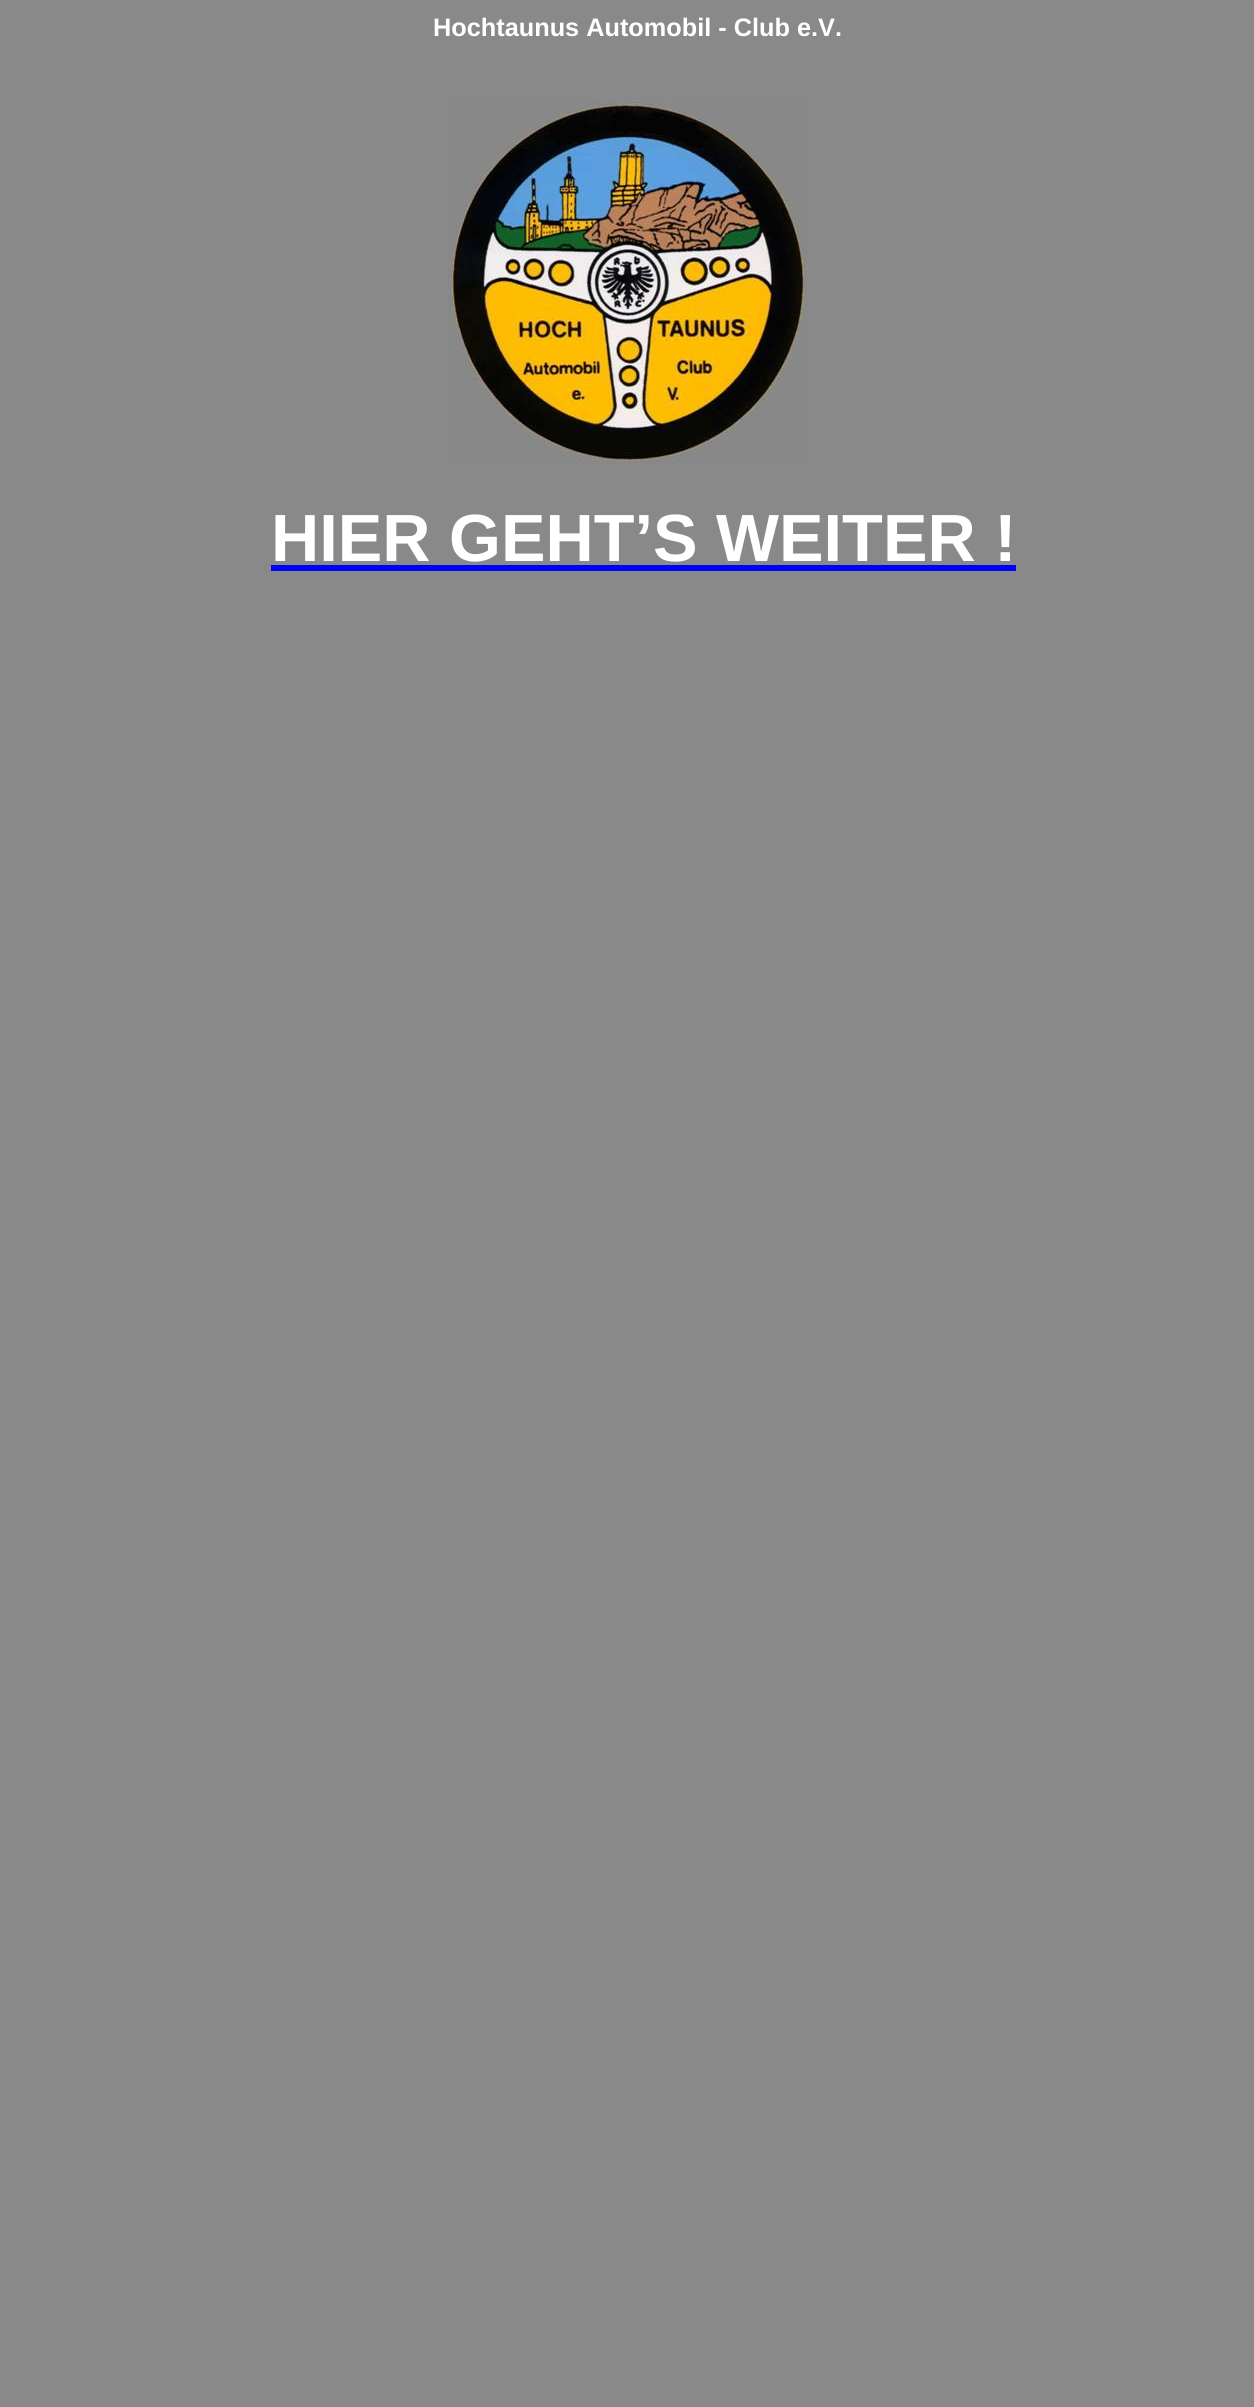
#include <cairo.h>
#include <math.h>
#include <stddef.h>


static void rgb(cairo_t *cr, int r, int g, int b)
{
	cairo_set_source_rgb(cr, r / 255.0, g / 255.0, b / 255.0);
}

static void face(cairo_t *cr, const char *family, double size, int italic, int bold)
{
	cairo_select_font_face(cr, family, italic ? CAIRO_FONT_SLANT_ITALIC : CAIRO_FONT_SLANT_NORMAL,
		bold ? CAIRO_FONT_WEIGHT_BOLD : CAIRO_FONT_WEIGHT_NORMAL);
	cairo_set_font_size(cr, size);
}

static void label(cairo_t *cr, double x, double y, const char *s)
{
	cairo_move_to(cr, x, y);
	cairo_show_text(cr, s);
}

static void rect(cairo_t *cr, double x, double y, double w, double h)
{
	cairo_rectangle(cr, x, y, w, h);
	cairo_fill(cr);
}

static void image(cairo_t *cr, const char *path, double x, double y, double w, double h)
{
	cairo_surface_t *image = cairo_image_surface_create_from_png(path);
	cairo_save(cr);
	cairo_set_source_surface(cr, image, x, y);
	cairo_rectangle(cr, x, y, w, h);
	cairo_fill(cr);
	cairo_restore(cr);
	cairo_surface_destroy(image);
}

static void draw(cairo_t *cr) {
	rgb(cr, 137, 137, 137);
	cairo_paint(cr);
	face(cr, "Liberation Sans", 25.3, 0, 1);
	rgb(cr, 255, 255, 255);
	label(cr, 433, 36, "Hochtaunus Automobil - Club e.V.");
	image(cr, "image0.png", 448, 101, 359, 363);
	face(cr, "Liberation Sans", 66.75, 0, 1);
	label(cr, 271, 561, "HIER GEHT’S WEITER !");
	rgb(cr, 0, 0, 255);
	rect(cr, 271, 565, 745, 6);
}

int main(void) {
	cairo_surface_t *surface = cairo_image_surface_create(CAIRO_FORMAT_RGB24, 1254, 2407);
	cairo_t *cr = cairo_create(surface);
	cairo_font_options_t *options = cairo_font_options_create();
	cairo_font_options_set_hint_metrics(options, CAIRO_HINT_METRICS_OFF);
	cairo_font_options_set_hint_style(options, CAIRO_HINT_STYLE_NONE);
	cairo_set_font_options(cr, options);
	cairo_set_miter_limit(cr, 4);
	draw(cr);
	cairo_surface_write_to_png(surface, "render.png");
	cairo_font_options_destroy(options);
	cairo_destroy(cr);
	cairo_surface_destroy(surface);
	return 0;
}
